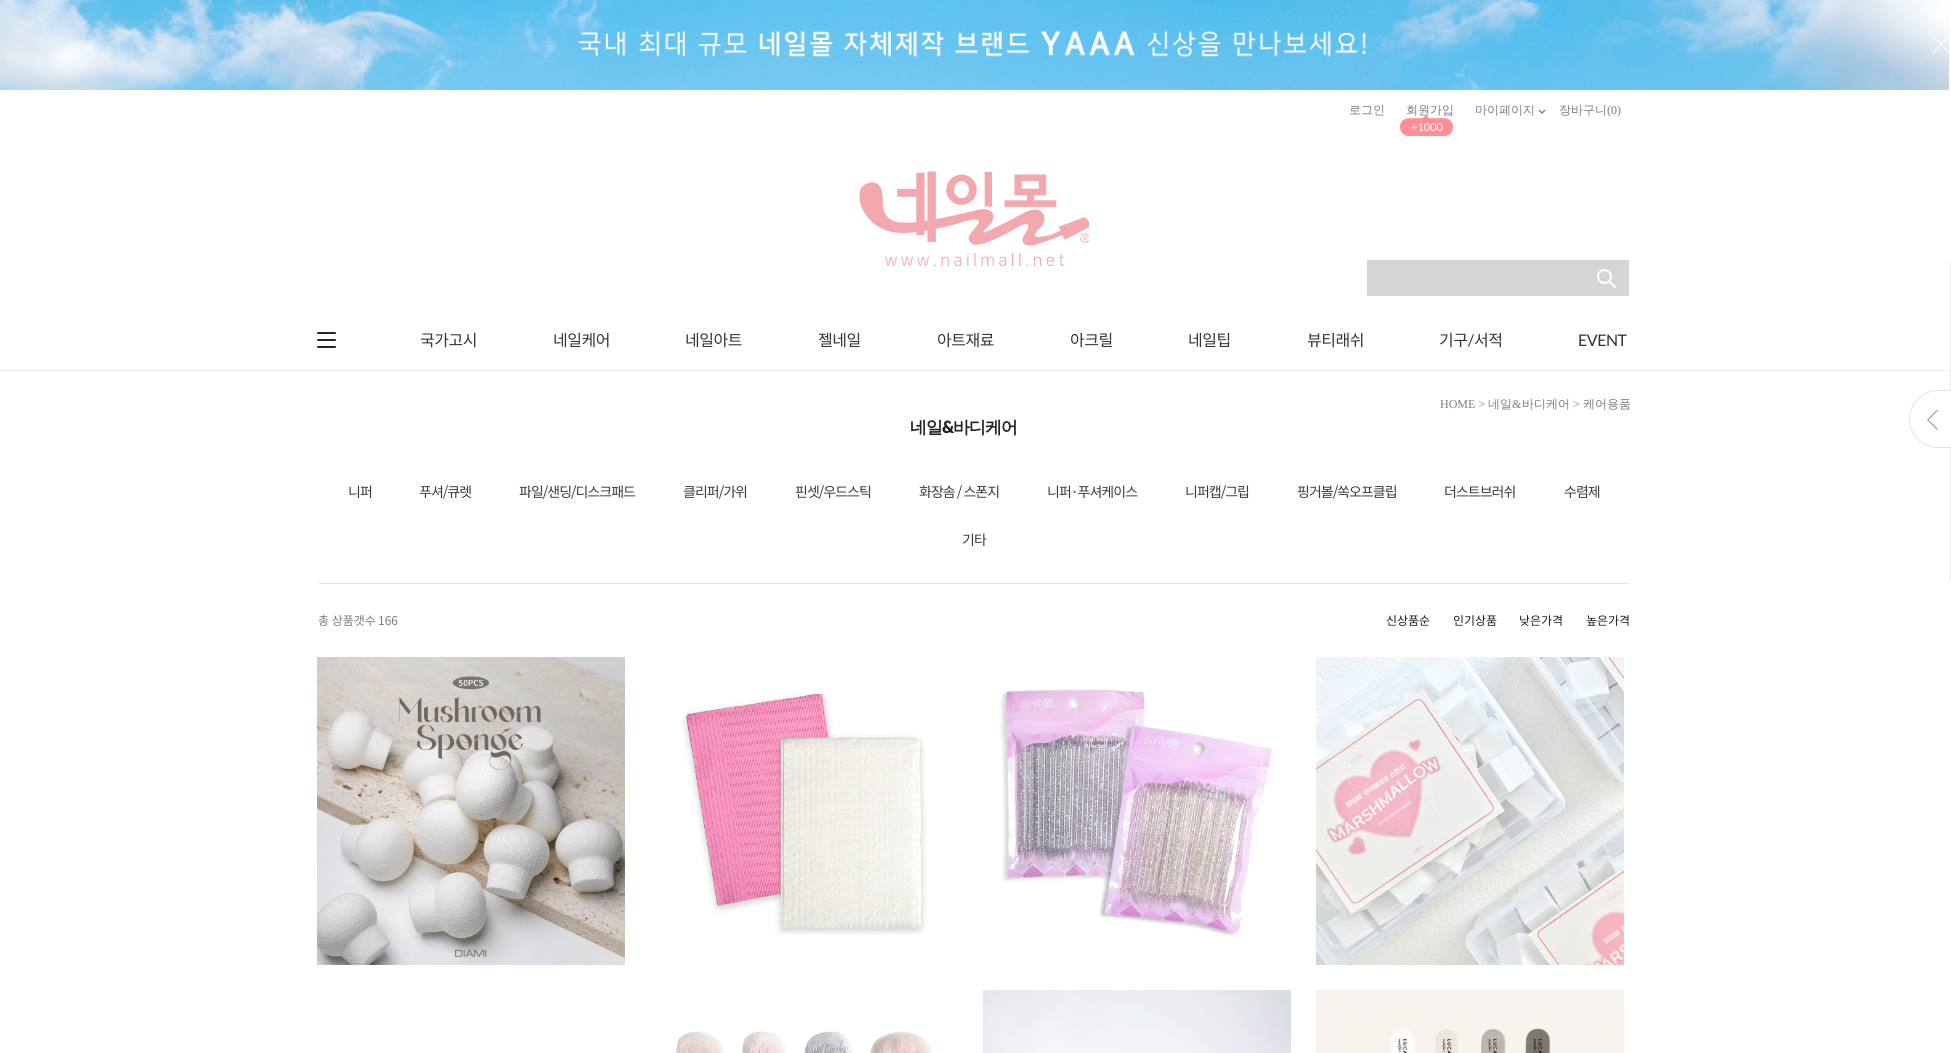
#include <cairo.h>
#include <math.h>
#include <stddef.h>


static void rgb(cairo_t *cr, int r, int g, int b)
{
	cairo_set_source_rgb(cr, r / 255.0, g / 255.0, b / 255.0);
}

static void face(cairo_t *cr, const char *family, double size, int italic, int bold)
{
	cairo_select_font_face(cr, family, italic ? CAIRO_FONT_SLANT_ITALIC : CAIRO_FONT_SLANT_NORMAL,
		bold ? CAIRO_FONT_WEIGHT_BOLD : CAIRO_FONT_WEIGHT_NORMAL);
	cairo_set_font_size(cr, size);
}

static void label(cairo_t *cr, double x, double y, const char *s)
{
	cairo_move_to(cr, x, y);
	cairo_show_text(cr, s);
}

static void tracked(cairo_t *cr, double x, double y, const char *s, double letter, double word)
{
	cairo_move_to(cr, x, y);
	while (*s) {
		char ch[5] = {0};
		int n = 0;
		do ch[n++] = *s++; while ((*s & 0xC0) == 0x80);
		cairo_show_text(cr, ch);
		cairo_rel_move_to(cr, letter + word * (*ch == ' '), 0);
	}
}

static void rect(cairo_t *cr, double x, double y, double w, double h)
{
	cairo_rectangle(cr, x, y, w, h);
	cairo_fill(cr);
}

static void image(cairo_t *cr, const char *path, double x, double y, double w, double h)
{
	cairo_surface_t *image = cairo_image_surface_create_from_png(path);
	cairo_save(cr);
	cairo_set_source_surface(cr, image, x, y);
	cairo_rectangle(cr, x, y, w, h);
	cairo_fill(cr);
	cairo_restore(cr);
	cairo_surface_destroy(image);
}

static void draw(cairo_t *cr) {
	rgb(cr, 255, 255, 255);
	cairo_paint(cr);
	image(cr, "image0.png", 0, 0, 1949, 90);
	image(cr, "image1.png", 1932, 35, 17, 19);
	rgb(cr, 234, 234, 239);
	rect(cr, 0, 370, 1949, 1);
	face(cr, "WenQuanYi Zen Hei Medium", 12, 0, 0);
	rgb(cr, 123, 123, 123);
	label(cr, 1349, 114, "로그인");
	label(cr, 1406, 114, "회원가입");
	image(cr, "image2.png", 1400, 115, 53, 21);
	face(cr, "Lato", 11, 0, 0);
	rgb(cr, 255, 255, 255);
	label(cr, 1411, 131, "+1000");
	face(cr, "WenQuanYi Zen Hei Medium", 12, 0, 0);
	rgb(cr, 123, 123, 123);
	label(cr, 1475, 114, "마이페이지");
	image(cr, "image3.png", 1538, 110, 8, 4);
	label(cr, 1559, 114, "장바구니");
	face(cr, "Liberation Serif", 12, 0, 0);
	label(cr, 1607, 114, "(0)");
	image(cr, "image4.png", 859, 171, 230, 95);
	rgb(cr, 213, 213, 213);
	rect(cr, 1367, 260, 262, 36);
	image(cr, "image5.png", 1597, 269, 19, 19);
	image(cr, "image6.png", 317, 332, 19, 16);
	face(cr, "Noto Sans KR", 16, 0, 0);
	rgb(cr, 51, 51, 51);
	tracked(cr, 420, 346, "국가고시", -0.5, 0);
	tracked(cr, 553, 346, "네일케어", -0.5, 0);
	tracked(cr, 685, 346, "네일아트", -0.5, 0);
	tracked(cr, 818, 346, "젤네일", -0.5, 0);
	tracked(cr, 937, 346, "아트재료", -0.5, 0);
	tracked(cr, 1070, 346, "아크릴", -0.5, 0);
	tracked(cr, 1188, 346, "네일팁", -0.5, 0);
	tracked(cr, 1307, 346, "뷰티래쉬", -0.5, 0);
	tracked(cr, 1439, 346, "기구", -0.5, 0);
	face(cr, "Lato", 16, 0, 0);
	tracked(cr, 1468, 346, "/", -0.5, 0);
	face(cr, "Noto Sans KR", 16, 0, 0);
	tracked(cr, 1474, 346, "서적", -0.5, 0);
	face(cr, "Lato", 16, 0, 0);
	tracked(cr, 1578, 346, "EVENT", -0.5, 0);
	face(cr, "Liberation Serif", 12, 0, 0);
	rgb(cr, 123, 123, 123);
	label(cr, 1440, 408, "HOME >");
	face(cr, "WenQuanYi Zen Hei Medium", 12, 0, 0);
	label(cr, 1488, 408, "네일");
	face(cr, "Liberation Serif", 12, 0, 0);
	label(cr, 1512, 408, "&");
	face(cr, "WenQuanYi Zen Hei Medium", 12, 0, 0);
	label(cr, 1522, 408, "바디케어");
	face(cr, "Liberation Serif", 12, 0, 0);
	label(cr, 1573, 408, ">");
	face(cr, "WenQuanYi Zen Hei Medium", 12, 0, 0);
	label(cr, 1583, 408, "케어용품");
	face(cr, "WenQuanYi Zen Hei", 17, 0, 1);
	rgb(cr, 34, 34, 34);
	tracked(cr, 910, 433, "네일", -1, 0);
	face(cr, "Lato Black", 17, 0, 0);
	tracked(cr, 942, 433, "&", -1, 0);
	face(cr, "WenQuanYi Zen Hei", 17, 0, 1);
	tracked(cr, 953, 433, "바디케어", -1, 0);
	rgb(cr, 227, 227, 227);
	rect(cr, 319, 583, 1310, 1);
	face(cr, "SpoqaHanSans", 14, 0, 0);
	rgb(cr, 57, 57, 57);
	tracked(cr, 348, 497, "니퍼", -1, 0);
	tracked(cr, 419, 497, "푸셔/큐렛", -1, 0);
	tracked(cr, 519, 497, "파일/샌딩/디스크패드", -1, 0);
	tracked(cr, 683, 497, "클리퍼/가위", -1, 0);
	tracked(cr, 795, 497, "핀셋/우드스틱", -1, 0);
	tracked(cr, 919, 497, "화장솜 / 스폰지", -1, 0);
	tracked(cr, 1047, 497, "니퍼·푸셔케이스", -1, 0);
	tracked(cr, 1185, 497, "니퍼캡/그립", -1, 0);
	tracked(cr, 1297, 497, "핑거볼/쏙오프클립", -1, 0);
	tracked(cr, 1444, 497, "더스트브러쉬", -1, 0);
	tracked(cr, 1564, 497, "수렴제", -1, 0);
	tracked(cr, 962, 545, "기타", -1, 0);
	face(cr, "Noto Sans KR", 12, 0, 0);
	rgb(cr, 123, 123, 123);
	label(cr, 318, 625, "총 상품갯수");
	label(cr, 378, 625, "166");
	rgb(cr, 28, 28, 28);
	label(cr, 1386, 625, "신상품순");
	label(cr, 1453, 625, "인기상품");
	label(cr, 1519, 625, "낮은가격");
	label(cr, 1586, 625, "높은가격");
	image(cr, "image7.png", 317, 657, 308, 308);
	image(cr, "image8.png", 682, 691, 245, 244);
	image(cr, "image9.png", 1000, 689, 272, 247);
	image(cr, "image10.png", 1316, 657, 308, 308);
	image(cr, "image11.png", 675, 1031, 257, 22);
	image(cr, "image12.png", 983, 990, 308, 63);
	image(cr, "image13.png", 1316, 990, 308, 63);
	rgb(cr, 234, 234, 234);
	rect(cr, 1950, 263, 1, 318);
	rect(cr, 1949, 304, 2, 1);
	rect(cr, 1949, 344, 2, 1);
	rect(cr, 1949, 384, 2, 1);
	rect(cr, 1949, 465, 2, 1);
	image(cr, "image14.png", 1909, 390, 42, 58);
}

int main(void) {
	cairo_surface_t *surface = cairo_image_surface_create(CAIRO_FORMAT_RGB24, 1951, 1053);
	cairo_t *cr = cairo_create(surface);
	cairo_font_options_t *options = cairo_font_options_create();
	cairo_font_options_set_hint_metrics(options, CAIRO_HINT_METRICS_OFF);
	cairo_font_options_set_hint_style(options, CAIRO_HINT_STYLE_NONE);
	cairo_set_font_options(cr, options);
	cairo_set_miter_limit(cr, 4);
	draw(cr);
	cairo_surface_write_to_png(surface, "render.png");
	cairo_font_options_destroy(options);
	cairo_destroy(cr);
	cairo_surface_destroy(surface);
	return 0;
}
